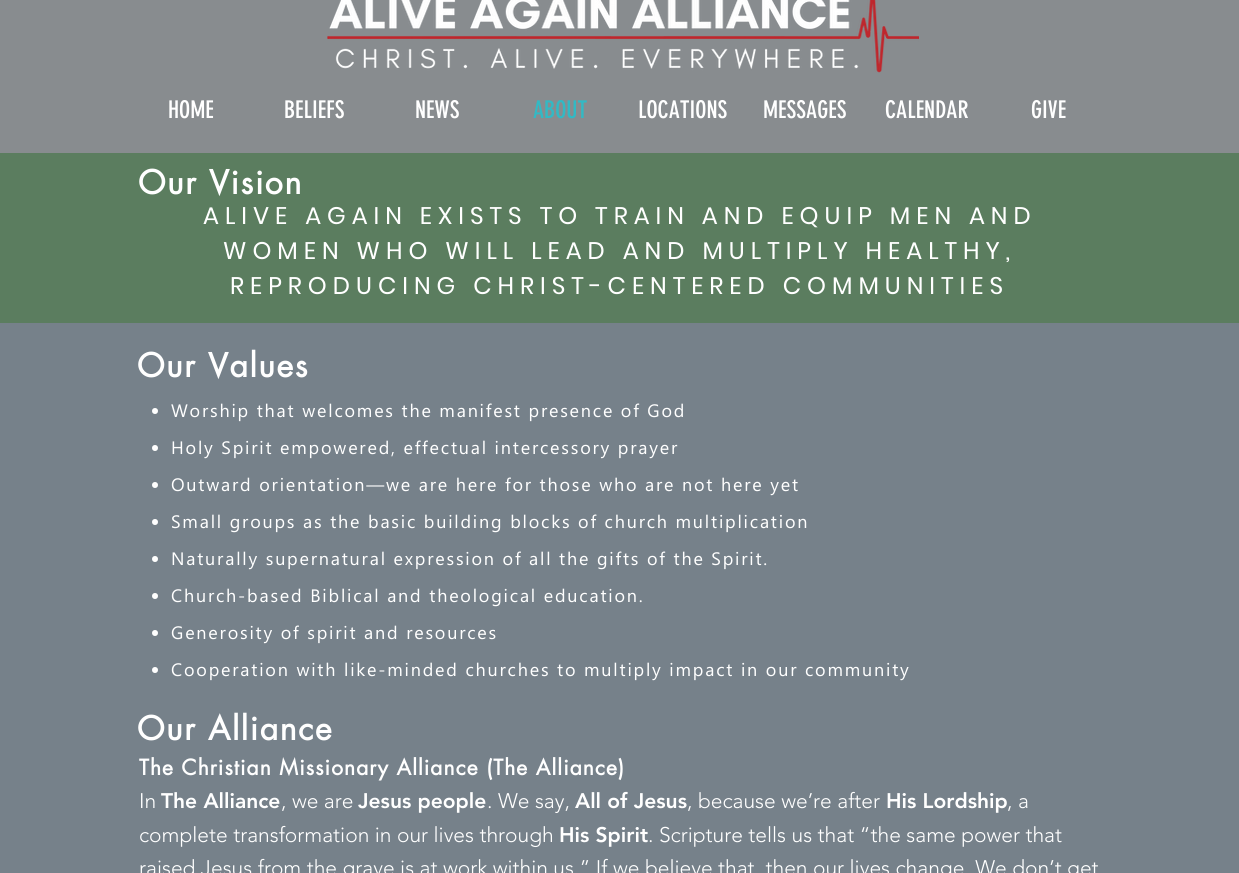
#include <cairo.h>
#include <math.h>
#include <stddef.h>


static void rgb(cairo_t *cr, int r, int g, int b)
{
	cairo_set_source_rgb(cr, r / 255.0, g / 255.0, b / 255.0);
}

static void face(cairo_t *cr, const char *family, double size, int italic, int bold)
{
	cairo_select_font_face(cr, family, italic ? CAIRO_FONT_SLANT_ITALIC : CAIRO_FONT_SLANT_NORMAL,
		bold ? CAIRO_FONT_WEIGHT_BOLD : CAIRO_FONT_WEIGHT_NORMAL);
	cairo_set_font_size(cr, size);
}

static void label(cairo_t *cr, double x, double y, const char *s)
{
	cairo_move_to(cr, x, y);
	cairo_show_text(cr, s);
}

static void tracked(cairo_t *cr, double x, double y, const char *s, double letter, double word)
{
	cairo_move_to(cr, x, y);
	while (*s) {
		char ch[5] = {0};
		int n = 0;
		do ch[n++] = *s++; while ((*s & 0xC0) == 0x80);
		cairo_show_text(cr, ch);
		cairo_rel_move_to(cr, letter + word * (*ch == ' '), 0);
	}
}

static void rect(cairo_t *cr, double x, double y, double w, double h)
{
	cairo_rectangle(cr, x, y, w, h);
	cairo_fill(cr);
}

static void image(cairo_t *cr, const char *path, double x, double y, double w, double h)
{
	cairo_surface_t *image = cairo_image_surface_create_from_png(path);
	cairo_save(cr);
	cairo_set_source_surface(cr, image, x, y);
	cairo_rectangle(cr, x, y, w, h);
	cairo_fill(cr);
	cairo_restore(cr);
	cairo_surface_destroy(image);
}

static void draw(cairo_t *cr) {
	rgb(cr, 118, 129, 138);
	cairo_paint(cr);
	rgb(cr, 136, 140, 143);
	rect(cr, 0, 0, 1239, 153);
	image(cr, "image0.png", 327, 0, 592, 73);
	face(cr, "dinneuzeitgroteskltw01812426", 24, 0, 0);
	rgb(cr, 255, 255, 255);
	label(cr, 168, 118, "HOME");
	label(cr, 284, 118, "BELIEFS");
	label(cr, 415, 118, "NEWS");
	rgb(cr, 50, 185, 196);
	label(cr, 533, 118, "ABOUT");
	rgb(cr, 255, 255, 255);
	label(cr, 638, 118, "LOCATIONS");
	label(cr, 763, 118, "MESSAGES");
	label(cr, 885, 118, "CALENDAR");
	label(cr, 1031, 118, "GIVE");
	rgb(cr, 91, 125, 95);
	rect(cr, 0, 153, 1239, 170);
	face(cr, "futura", 32, 0, 1);
	rgb(cr, 255, 255, 255);
	tracked(cr, 138, 194, "Our Vision", 1.6, 0);
	face(cr, "Poppins", 24, 0, 0);
	tracked(cr, 203, 224, "ALIVE AGAIN EXISTS TO TRAIN AND EQUIP MEN AND", 6, 0);
	tracked(cr, 223, 259, "WOMEN WHO WILL LEAD AND MULTIPLY HEALTHY,", 6, 0);
	tracked(cr, 230, 294, "REPRODUCING CHRIST-CENTERED COMMUNITIES", 6, 0);
	face(cr, "futura", 32, 0, 1);
	tracked(cr, 137, 377, "Our Values", 1.6, 0);
	cairo_new_path(cr);
	cairo_arc(cr, 155, 411, 3, 0, 2 * M_PI);
	cairo_fill(cr);
	face(cr, "Segoe UI", 18, 0, 0);
	tracked(cr, 171, 417, "Worship that welcomes the manifest presence of God", 1.8, 0);
	cairo_new_path(cr);
	cairo_arc(cr, 155, 448, 3, 0, 2 * M_PI);
	cairo_fill(cr);
	tracked(cr, 171, 454, "Holy Spirit empowered, effectual intercessory prayer", 1.8, 0);
	cairo_new_path(cr);
	cairo_arc(cr, 155, 485, 3, 0, 2 * M_PI);
	cairo_fill(cr);
	tracked(cr, 171, 491, "Outward orientation—we are here for those who are not here yet", 1.8, 0);
	cairo_new_path(cr);
	cairo_arc(cr, 155, 522, 3, 0, 2 * M_PI);
	cairo_fill(cr);
	tracked(cr, 171, 528, "Small groups as the basic building blocks of church multiplication", 1.8, 0);
	cairo_new_path(cr);
	cairo_arc(cr, 155, 559, 3, 0, 2 * M_PI);
	cairo_fill(cr);
	tracked(cr, 171, 565, "Naturally supernatural expression of all the gifts of the Spirit.", 1.8, 0);
	cairo_new_path(cr);
	cairo_arc(cr, 155, 596, 3, 0, 2 * M_PI);
	cairo_fill(cr);
	tracked(cr, 171, 602, "Church-based Biblical and theological education.", 1.8, 0);
	cairo_new_path(cr);
	cairo_arc(cr, 155, 633, 3, 0, 2 * M_PI);
	cairo_fill(cr);
	tracked(cr, 171, 639, "Generosity of spirit and resources", 1.8, 0);
	cairo_new_path(cr);
	cairo_arc(cr, 155, 670, 3, 0, 2 * M_PI);
	cairo_fill(cr);
	tracked(cr, 171, 676, "Cooperation with like-minded churches to multiply impact in our community", 1.8, 0);
	face(cr, "futura", 32, 0, 1);
	tracked(cr, 137, 740, "Our Alliance", 1.6, 0);
	face(cr, "futura", 21, 0, 1);
	tracked(cr, 139, 775, "The Christian Missionary Alliance (The Alliance)", 1.05, 0);
	face(cr, "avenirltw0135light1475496 Light", 21, 0, 0);
	label(cr, 139, 808, "In");
	face(cr, "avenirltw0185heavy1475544 Black", 21, 0, 0);
	label(cr, 161, 808, "The Alliance");
	face(cr, "avenirltw0135light1475496 Light", 21, 0, 0);
	label(cr, 281, 808, ", we are");
	face(cr, "avenirltw0185heavy1475544 Black", 21, 0, 0);
	label(cr, 358, 808, "Jesus people");
	face(cr, "avenirltw0135light1475496 Light", 21, 0, 0);
	label(cr, 487, 808, ". We say,");
	face(cr, "avenirltw0185heavy1475544 Black", 21, 0, 0);
	label(cr, 575, 808, "All of Jesus");
	face(cr, "avenirltw0135light1475496 Light", 21, 0, 0);
	label(cr, 687, 808, ", because we’re after");
	face(cr, "avenirltw0185heavy1475544 Black", 21, 0, 0);
	label(cr, 886, 808, "His Lordship");
	face(cr, "avenirltw0135light1475496 Light", 21, 0, 0);
	label(cr, 1007, 808, ", a");
	label(cr, 139, 842, "complete transformation in our lives through");
	face(cr, "avenirltw0185heavy1475544 Black", 21, 0, 0);
	label(cr, 559, 842, "His Spirit");
	face(cr, "avenirltw0135light1475496 Light", 21, 0, 0);
	label(cr, 648, 842, ". Scripture tells us that “the same power that");
	label(cr, 139, 875, "raised Jesus from the grave is at work within us.” If we believe that, then our lives change. We don’t get");
}

int main(void) {
	cairo_surface_t *surface = cairo_image_surface_create(CAIRO_FORMAT_RGB24, 1239, 873);
	cairo_t *cr = cairo_create(surface);
	cairo_font_options_t *options = cairo_font_options_create();
	cairo_font_options_set_hint_metrics(options, CAIRO_HINT_METRICS_OFF);
	cairo_font_options_set_hint_style(options, CAIRO_HINT_STYLE_NONE);
	cairo_set_font_options(cr, options);
	cairo_set_miter_limit(cr, 4);
	draw(cr);
	cairo_surface_write_to_png(surface, "render.png");
	cairo_font_options_destroy(options);
	cairo_destroy(cr);
	cairo_surface_destroy(surface);
	return 0;
}
